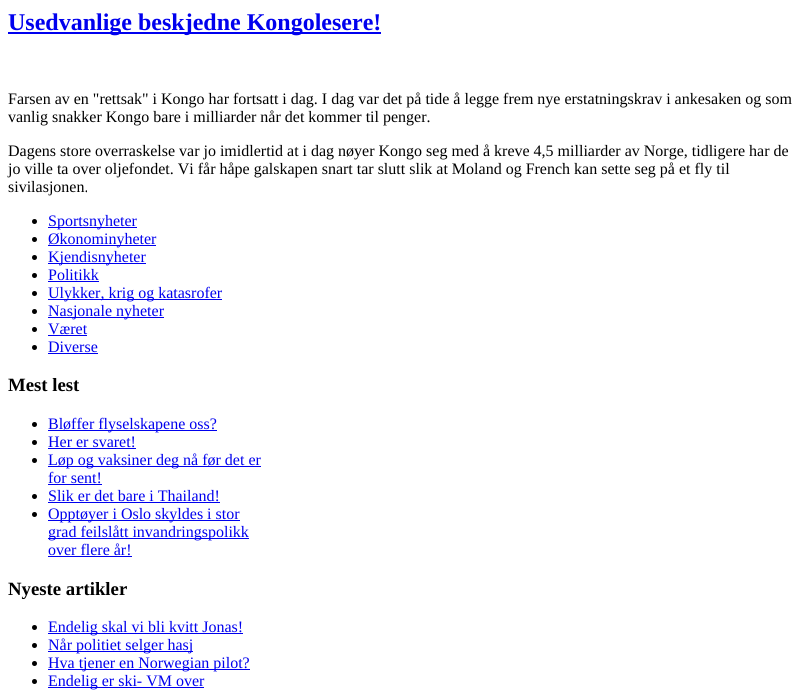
#include <cairo.h>
#include <math.h>
#include <stddef.h>


static void rgb(cairo_t *cr, int r, int g, int b)
{
	cairo_set_source_rgb(cr, r / 255.0, g / 255.0, b / 255.0);
}

static void face(cairo_t *cr, const char *family, double size, int italic, int bold)
{
	cairo_select_font_face(cr, family, italic ? CAIRO_FONT_SLANT_ITALIC : CAIRO_FONT_SLANT_NORMAL,
		bold ? CAIRO_FONT_WEIGHT_BOLD : CAIRO_FONT_WEIGHT_NORMAL);
	cairo_set_font_size(cr, size);
}

static void label(cairo_t *cr, double x, double y, const char *s)
{
	cairo_move_to(cr, x, y);
	cairo_show_text(cr, s);
}

static void rect(cairo_t *cr, double x, double y, double w, double h)
{
	cairo_rectangle(cr, x, y, w, h);
	cairo_fill(cr);
}

static void draw(cairo_t *cr) {
	rgb(cr, 255, 255, 255);
	cairo_paint(cr);
	rgb(cr, 0, 0, 238);
	rect(cr, 8, 32, 373, 2);
	face(cr, "Liberation Serif", 24, 0, 1);
	label(cr, 8, 30, "Usedvanlige beskjedne Kongolesere!");
	face(cr, "Liberation Serif", 16, 0, 0);
	rgb(cr, 0, 0, 0);
	label(cr, 8, 104, "Farsen av en \"rettsak\" i Kongo har fortsatt i dag. I dag var det på tide å legge frem nye erstatningskrav i ankesaken og som");
	label(cr, 8, 122, "vanlig snakker Kongo bare i milliarder når det kommer til penger.");
	label(cr, 8, 156, "Dagens store overraskelse var jo imidlertid at i dag nøyer Kongo seg med å kreve 4,5 milliarder av Norge, tidligere har de");
	label(cr, 8, 174, "jo ville ta over oljefondet. Vi får håpe galskapen snart tar slutt slik at Moland og French kan sette seg på et fly til");
	label(cr, 8, 192, "sivilasjonen.");
	cairo_new_path(cr);
	cairo_arc(cr, 34.5, 221.5, 2.5, 0, 2 * M_PI);
	cairo_fill(cr);
	rgb(cr, 0, 0, 238);
	rect(cr, 48, 227, 89, 1);
	label(cr, 48, 226, "Sportsnyheter");
	rgb(cr, 0, 0, 0);
	cairo_new_path(cr);
	cairo_arc(cr, 34.5, 239.5, 2.5, 0, 2 * M_PI);
	cairo_fill(cr);
	rgb(cr, 0, 0, 238);
	rect(cr, 48, 245, 108, 1);
	label(cr, 48, 244, "Økonominyheter");
	rgb(cr, 0, 0, 0);
	cairo_new_path(cr);
	cairo_arc(cr, 34.5, 257.5, 2.5, 0, 2 * M_PI);
	cairo_fill(cr);
	rgb(cr, 0, 0, 238);
	rect(cr, 48, 263, 98, 1);
	label(cr, 48, 262, "Kjendisnyheter");
	rgb(cr, 0, 0, 0);
	cairo_new_path(cr);
	cairo_arc(cr, 34.5, 275.5, 2.5, 0, 2 * M_PI);
	cairo_fill(cr);
	rgb(cr, 0, 0, 238);
	label(cr, 48, 280, "Politikk");
	rect(cr, 48, 281, 51, 1);
	rgb(cr, 0, 0, 0);
	cairo_new_path(cr);
	cairo_arc(cr, 34.5, 293.5, 2.5, 0, 2 * M_PI);
	cairo_fill(cr);
	rgb(cr, 0, 0, 238);
	rect(cr, 48, 299, 174, 1);
	label(cr, 48, 298, "Ulykker, krig og katasrofer");
	rgb(cr, 0, 0, 0);
	cairo_new_path(cr);
	cairo_arc(cr, 34.5, 311.5, 2.5, 0, 2 * M_PI);
	cairo_fill(cr);
	rgb(cr, 0, 0, 238);
	rect(cr, 48, 317, 116, 1);
	label(cr, 48, 316, "Nasjonale nyheter");
	rgb(cr, 0, 0, 0);
	cairo_new_path(cr);
	cairo_arc(cr, 34.5, 329.5, 2.5, 0, 2 * M_PI);
	cairo_fill(cr);
	rgb(cr, 0, 0, 238);
	label(cr, 48, 334, "Været");
	rect(cr, 48, 335, 39, 1);
	rgb(cr, 0, 0, 0);
	cairo_new_path(cr);
	cairo_arc(cr, 34.5, 347.5, 2.5, 0, 2 * M_PI);
	cairo_fill(cr);
	rgb(cr, 0, 0, 238);
	label(cr, 48, 352, "Diverse");
	rect(cr, 48, 353, 50, 1);
	face(cr, "Liberation Serif", 18.75, 0, 1);
	rgb(cr, 0, 0, 0);
	label(cr, 8, 391, "Mest lest");
	cairo_new_path(cr);
	cairo_arc(cr, 34.5, 424.5, 2.5, 0, 2 * M_PI);
	cairo_fill(cr);
	rgb(cr, 0, 0, 238);
	rect(cr, 48, 430, 169, 1);
	face(cr, "Liberation Serif", 16, 0, 0);
	label(cr, 48, 429, "Bløffer flyselskapene oss?");
	rgb(cr, 0, 0, 0);
	cairo_new_path(cr);
	cairo_arc(cr, 34.5, 442.5, 2.5, 0, 2 * M_PI);
	cairo_fill(cr);
	rgb(cr, 0, 0, 238);
	label(cr, 48, 447, "Her er svaret!");
	rect(cr, 48, 448, 88, 1);
	rgb(cr, 0, 0, 0);
	cairo_new_path(cr);
	cairo_arc(cr, 34.5, 460.5, 2.5, 0, 2 * M_PI);
	cairo_fill(cr);
	rgb(cr, 0, 0, 238);
	rect(cr, 48, 466, 213, 1);
	label(cr, 48, 465, "Løp og vaksiner deg nå før det er");
	label(cr, 48, 483, "for sent!");
	rect(cr, 48, 484, 54, 1);
	rgb(cr, 0, 0, 0);
	cairo_new_path(cr);
	cairo_arc(cr, 34.5, 496.5, 2.5, 0, 2 * M_PI);
	cairo_fill(cr);
	rgb(cr, 0, 0, 238);
	label(cr, 48, 501, "Slik er det bare i Thailand!");
	rect(cr, 48, 502, 172, 1);
	rgb(cr, 0, 0, 0);
	cairo_new_path(cr);
	cairo_arc(cr, 34.5, 514.5, 2.5, 0, 2 * M_PI);
	cairo_fill(cr);
	rgb(cr, 0, 0, 238);
	rect(cr, 48, 520, 192, 1);
	label(cr, 48, 519, "Opptøyer i Oslo skyldes i stor");
	rect(cr, 48, 538, 201, 1);
	label(cr, 48, 537, "grad feilslått invandringspolikk");
	label(cr, 48, 555, "over flere år!");
	rect(cr, 48, 556, 84, 1);
	face(cr, "Liberation Serif", 18.75, 0, 1);
	rgb(cr, 0, 0, 0);
	label(cr, 8, 595, "Nyeste artikler");
	cairo_new_path(cr);
	cairo_arc(cr, 34.5, 627.5, 2.5, 0, 2 * M_PI);
	cairo_fill(cr);
	rgb(cr, 0, 0, 238);
	rect(cr, 48, 633, 195, 1);
	face(cr, "Liberation Serif", 16, 0, 0);
	label(cr, 48, 632, "Endelig skal vi bli kvitt Jonas!");
	rgb(cr, 0, 0, 0);
	cairo_new_path(cr);
	cairo_arc(cr, 34.5, 645.5, 2.5, 0, 2 * M_PI);
	cairo_fill(cr);
	rgb(cr, 0, 0, 238);
	rect(cr, 48, 651, 145, 1);
	label(cr, 48, 650, "Når politiet selger hasj");
	rgb(cr, 0, 0, 0);
	cairo_new_path(cr);
	cairo_arc(cr, 34.5, 663.5, 2.5, 0, 2 * M_PI);
	cairo_fill(cr);
	rgb(cr, 0, 0, 238);
	rect(cr, 48, 669, 202, 1);
	label(cr, 48, 668, "Hva tjener en Norwegian pilot?");
	rgb(cr, 0, 0, 0);
	cairo_new_path(cr);
	cairo_arc(cr, 34.5, 681.5, 2.5, 0, 2 * M_PI);
	cairo_fill(cr);
	rgb(cr, 0, 0, 238);
	rect(cr, 48, 687, 156, 1);
	label(cr, 48, 686, "Endelig er ski- VM over");
}

int main(void) {
	cairo_surface_t *surface = cairo_image_surface_create(CAIRO_FORMAT_RGB24, 800, 690);
	cairo_t *cr = cairo_create(surface);
	cairo_font_options_t *options = cairo_font_options_create();
	cairo_font_options_set_hint_metrics(options, CAIRO_HINT_METRICS_OFF);
	cairo_font_options_set_hint_style(options, CAIRO_HINT_STYLE_NONE);
	cairo_set_font_options(cr, options);
	cairo_set_miter_limit(cr, 4);
	draw(cr);
	cairo_surface_write_to_png(surface, "render.png");
	cairo_font_options_destroy(options);
	cairo_destroy(cr);
	cairo_surface_destroy(surface);
	return 0;
}
